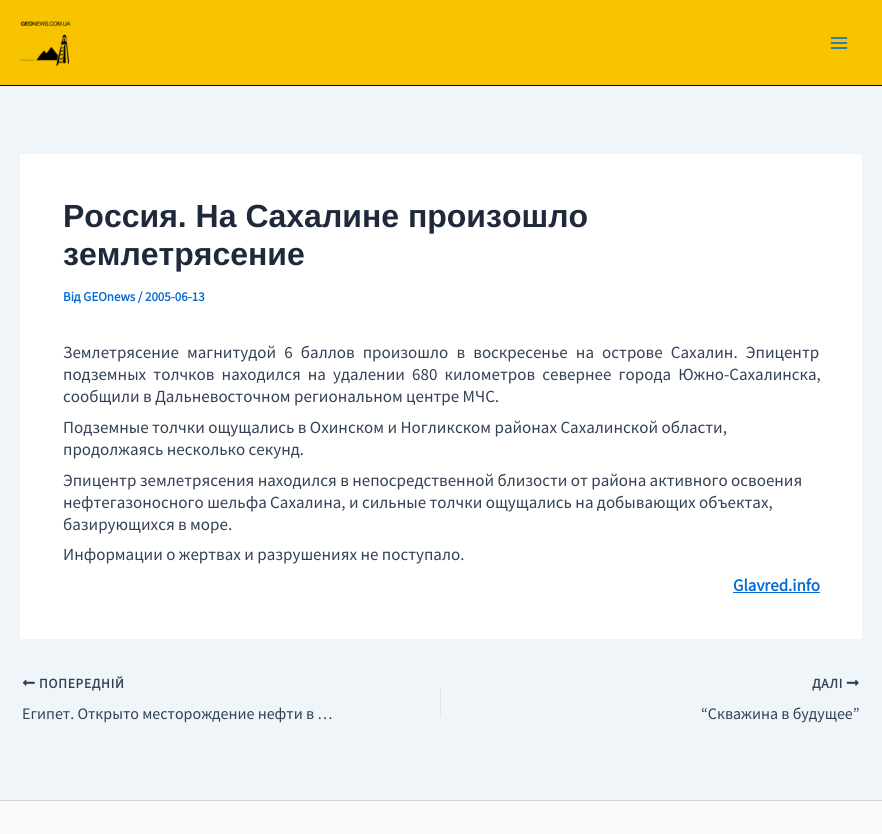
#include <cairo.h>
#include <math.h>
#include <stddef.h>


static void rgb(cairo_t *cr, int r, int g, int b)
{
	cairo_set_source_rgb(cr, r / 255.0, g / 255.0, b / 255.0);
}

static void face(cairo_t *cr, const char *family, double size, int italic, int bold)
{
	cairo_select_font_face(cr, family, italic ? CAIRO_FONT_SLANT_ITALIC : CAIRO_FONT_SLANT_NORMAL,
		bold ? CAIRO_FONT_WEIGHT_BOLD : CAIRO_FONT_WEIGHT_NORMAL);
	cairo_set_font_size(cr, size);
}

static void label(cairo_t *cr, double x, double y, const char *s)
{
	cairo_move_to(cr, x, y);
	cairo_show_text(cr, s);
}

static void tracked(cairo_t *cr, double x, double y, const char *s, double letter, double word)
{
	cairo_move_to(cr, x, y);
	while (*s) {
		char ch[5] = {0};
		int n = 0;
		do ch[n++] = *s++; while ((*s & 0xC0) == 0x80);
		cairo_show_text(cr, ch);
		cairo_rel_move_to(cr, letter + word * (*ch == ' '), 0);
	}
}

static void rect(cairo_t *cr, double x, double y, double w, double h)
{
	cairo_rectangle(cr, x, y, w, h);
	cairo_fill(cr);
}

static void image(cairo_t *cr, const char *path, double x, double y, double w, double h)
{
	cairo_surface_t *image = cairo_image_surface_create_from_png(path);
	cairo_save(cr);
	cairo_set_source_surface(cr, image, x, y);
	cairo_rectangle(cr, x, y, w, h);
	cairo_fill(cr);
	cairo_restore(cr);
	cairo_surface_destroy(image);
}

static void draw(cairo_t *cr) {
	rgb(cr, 240, 245, 250);
	cairo_paint(cr);
	rgb(cr, 248, 196, 0);
	rect(cr, 0, 0, 882, 85);
	rgb(cr, 0, 0, 0);
	rect(cr, 0, 85, 882, 1);
	image(cr, "image0.png", 20, 21, 51, 46);
	image(cr, "image1.png", 830, 37, 18, 12);
	rgb(cr, 255, 255, 255);
	rect(cr, 20, 154, 842, 485);
	face(cr, "Liberation Sans", 32, 0, 1);
	rgb(cr, 30, 41, 59);
	label(cr, 63, 227, "Россия. На Сахалине произошло");
	label(cr, 63, 265, "землетрясение");
	face(cr, "Source Sans Pro", 13, 0, 1);
	rgb(cr, 4, 107, 210);
	label(cr, 63, 301, "Від GEOnews / 2005-06-13");
	face(cr, "Source Sans Pro", 17, 0, 0);
	rgb(cr, 51, 65, 85);
	tracked(cr, 63, 358, "Землетрясение магнитудой 6 баллов произошло в воскресенье на острове Сахалин. Эпицентр", 0, 4.75);
	tracked(cr, 63, 380, "подземных толчков находился на удалении 680 километров севернее города Южно-Сахалинска,", 0, 3.75);
	label(cr, 63, 402, "сообщили в Дальневосточном региональном центре МЧС.");
	label(cr, 63, 433, "Подземные толчки ощущались в Охинском и Ногликском районах Сахалинской области,");
	label(cr, 63, 455, "продолжаясь несколько секунд.");
	label(cr, 63, 486, "Эпицентр землетрясения находился в непосредственной близости от района активного освоения");
	label(cr, 63, 508, "нефтегазоносного шельфа Сахалина, и сильные толчки ощущались на добывающих объектах,");
	label(cr, 63, 530, "базирующихся в море.");
	label(cr, 63, 560, "Информации о жертвах и разрушениях не поступало.");
	face(cr, "Source Sans Pro", 17, 0, 1);
	rgb(cr, 4, 107, 210);
	label(cr, 733, 591, "Glavred.info");
	rect(cr, 733, 592, 87, 1);
	image(cr, "image2.png", 22, 679, 13, 7);
	face(cr, "Source Sans Pro", 13.5, 0, 1);
	rgb(cr, 51, 65, 85);
	tracked(cr, 39, 688, "ПОПЕРЕДНІЙ", 0.75, 0);
	face(cr, "Source Sans Pro", 16, 0, 0);
	label(cr, 22, 719, "Египет. Открыто месторождение нефти в …");
	rgb(cr, 225, 232, 237);
	rect(cr, 440, 687, 1, 30);
	face(cr, "Source Sans Pro", 13.5, 0, 1);
	rgb(cr, 51, 65, 85);
	tracked(cr, 812, 688, "ДАЛІ", 0.75, 0);
	image(cr, "image3.png", 846, 679, 13, 7);
	face(cr, "Source Sans Pro", 16, 0, 0);
	label(cr, 701, 719, "“Скважина в будущее”");
	rgb(cr, 249, 249, 249);
	rect(cr, 0, 801, 882, 33);
	rgb(cr, 209, 213, 219);
	rect(cr, 0, 800, 882, 1);
}

int main(void) {
	cairo_surface_t *surface = cairo_image_surface_create(CAIRO_FORMAT_RGB24, 882, 834);
	cairo_t *cr = cairo_create(surface);
	cairo_font_options_t *options = cairo_font_options_create();
	cairo_font_options_set_hint_metrics(options, CAIRO_HINT_METRICS_OFF);
	cairo_font_options_set_hint_style(options, CAIRO_HINT_STYLE_NONE);
	cairo_set_font_options(cr, options);
	cairo_set_miter_limit(cr, 4);
	draw(cr);
	cairo_surface_write_to_png(surface, "render.png");
	cairo_font_options_destroy(options);
	cairo_destroy(cr);
	cairo_surface_destroy(surface);
	return 0;
}
